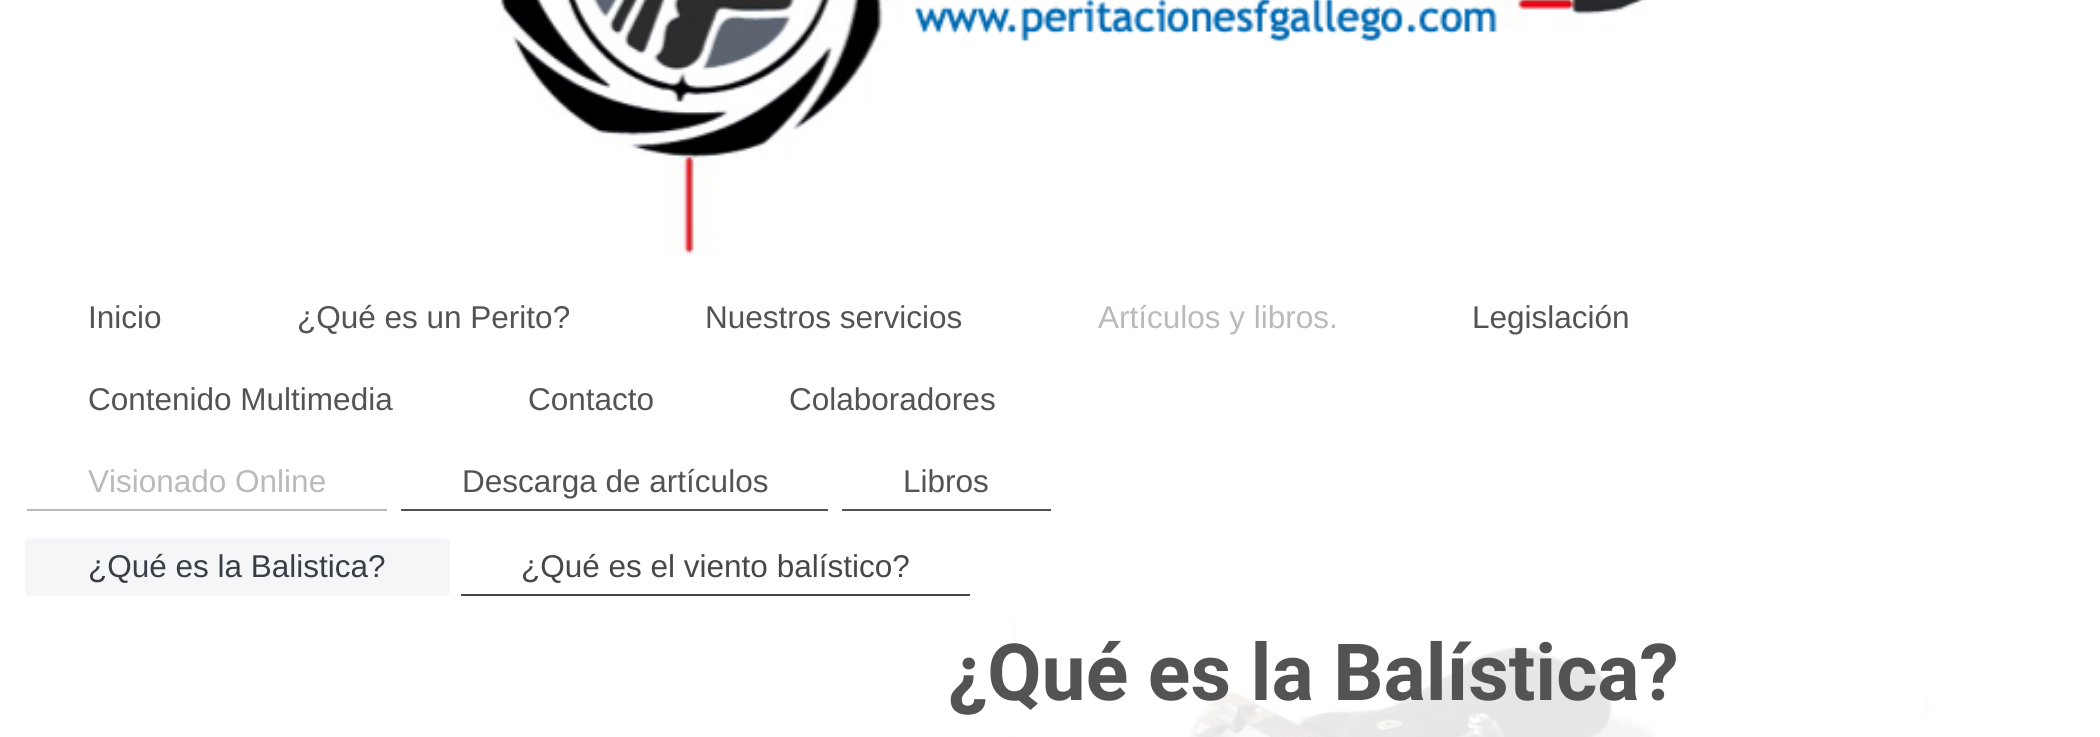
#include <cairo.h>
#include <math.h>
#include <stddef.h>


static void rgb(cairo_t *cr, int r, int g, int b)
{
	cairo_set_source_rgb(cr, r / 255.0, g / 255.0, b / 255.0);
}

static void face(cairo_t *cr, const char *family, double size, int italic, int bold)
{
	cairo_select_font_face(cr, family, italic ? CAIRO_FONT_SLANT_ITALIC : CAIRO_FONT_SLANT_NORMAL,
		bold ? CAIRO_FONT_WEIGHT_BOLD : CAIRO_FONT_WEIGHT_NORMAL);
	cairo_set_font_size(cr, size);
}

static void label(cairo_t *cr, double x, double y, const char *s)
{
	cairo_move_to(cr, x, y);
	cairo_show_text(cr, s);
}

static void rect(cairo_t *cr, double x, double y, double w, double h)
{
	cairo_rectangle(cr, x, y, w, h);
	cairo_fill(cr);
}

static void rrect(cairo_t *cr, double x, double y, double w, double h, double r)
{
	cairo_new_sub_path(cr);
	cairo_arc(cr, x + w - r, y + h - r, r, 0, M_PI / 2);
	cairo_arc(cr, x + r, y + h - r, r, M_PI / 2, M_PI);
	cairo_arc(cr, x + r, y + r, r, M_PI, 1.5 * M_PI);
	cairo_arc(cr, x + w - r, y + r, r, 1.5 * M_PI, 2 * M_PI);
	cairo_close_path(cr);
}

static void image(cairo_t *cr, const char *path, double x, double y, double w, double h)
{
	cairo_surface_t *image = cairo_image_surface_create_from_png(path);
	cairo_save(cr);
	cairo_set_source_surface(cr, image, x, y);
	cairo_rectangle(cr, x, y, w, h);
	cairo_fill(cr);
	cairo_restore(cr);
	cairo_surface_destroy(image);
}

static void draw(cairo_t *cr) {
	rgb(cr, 255, 255, 255);
	cairo_paint(cr);
	image(cr, "image0.png", 0, 621, 2100, 116);
	image(cr, "image1.png", 499, 0, 1147, 256);
	face(cr, "Liberation Sans", 31.5, 0, 0);
	rgb(cr, 83, 83, 83);
	label(cr, 88, 328, "Inicio");
	label(cr, 297, 328, "¿Qué es un Perito?");
	label(cr, 705, 328, "Nuestros servicios");
	rgb(cr, 186, 186, 186);
	label(cr, 1098, 328, "Artículos y libros.");
	rgb(cr, 83, 83, 83);
	label(cr, 1472, 328, "Legislación");
	label(cr, 88, 410, "Contenido Multimedia");
	label(cr, 528, 410, "Contacto");
	label(cr, 789, 410, "Colaboradores");
	rgb(cr, 186, 186, 186);
	rect(cr, 27, 509, 360, 2);
	label(cr, 88, 492, "Visionado Online");
	rgb(cr, 83, 83, 83);
	rect(cr, 401, 509, 427, 2);
	label(cr, 462, 492, "Descarga de artículos");
	rect(cr, 842, 509, 209, 2);
	label(cr, 903, 492, "Libros");
	rgb(cr, 245, 246, 248);
	rrect(cr, 25, 538, 425, 58, 5);
	cairo_fill(cr);
	rect(cr, 27, 595, 421, 1);
	rgb(cr, 56, 61, 70);
	label(cr, 88, 577, "¿Qué es la Balistica?");
	rgb(cr, 71, 71, 71);
	rect(cr, 461, 594, 509, 2);
	label(cr, 521, 577, "¿Qué es el viento balístico?");
	cairo_set_source_rgba(cr, 1, 1, 1, 0.9);
	rect(cr, 1017, 621, 912, 116);
	face(cr, "Roboto", 78.75, 0, 1);
	rgb(cr, 83, 83, 83);
	label(cr, 948, 700, "¿Qué es la Balística?");
}

int main(void) {
	cairo_surface_t *surface = cairo_image_surface_create(CAIRO_FORMAT_RGB24, 2100, 737);
	cairo_t *cr = cairo_create(surface);
	cairo_font_options_t *options = cairo_font_options_create();
	cairo_font_options_set_hint_metrics(options, CAIRO_HINT_METRICS_OFF);
	cairo_font_options_set_hint_style(options, CAIRO_HINT_STYLE_NONE);
	cairo_set_font_options(cr, options);
	cairo_set_miter_limit(cr, 4);
	draw(cr);
	cairo_surface_write_to_png(surface, "render.png");
	cairo_font_options_destroy(options);
	cairo_destroy(cr);
	cairo_surface_destroy(surface);
	return 0;
}
